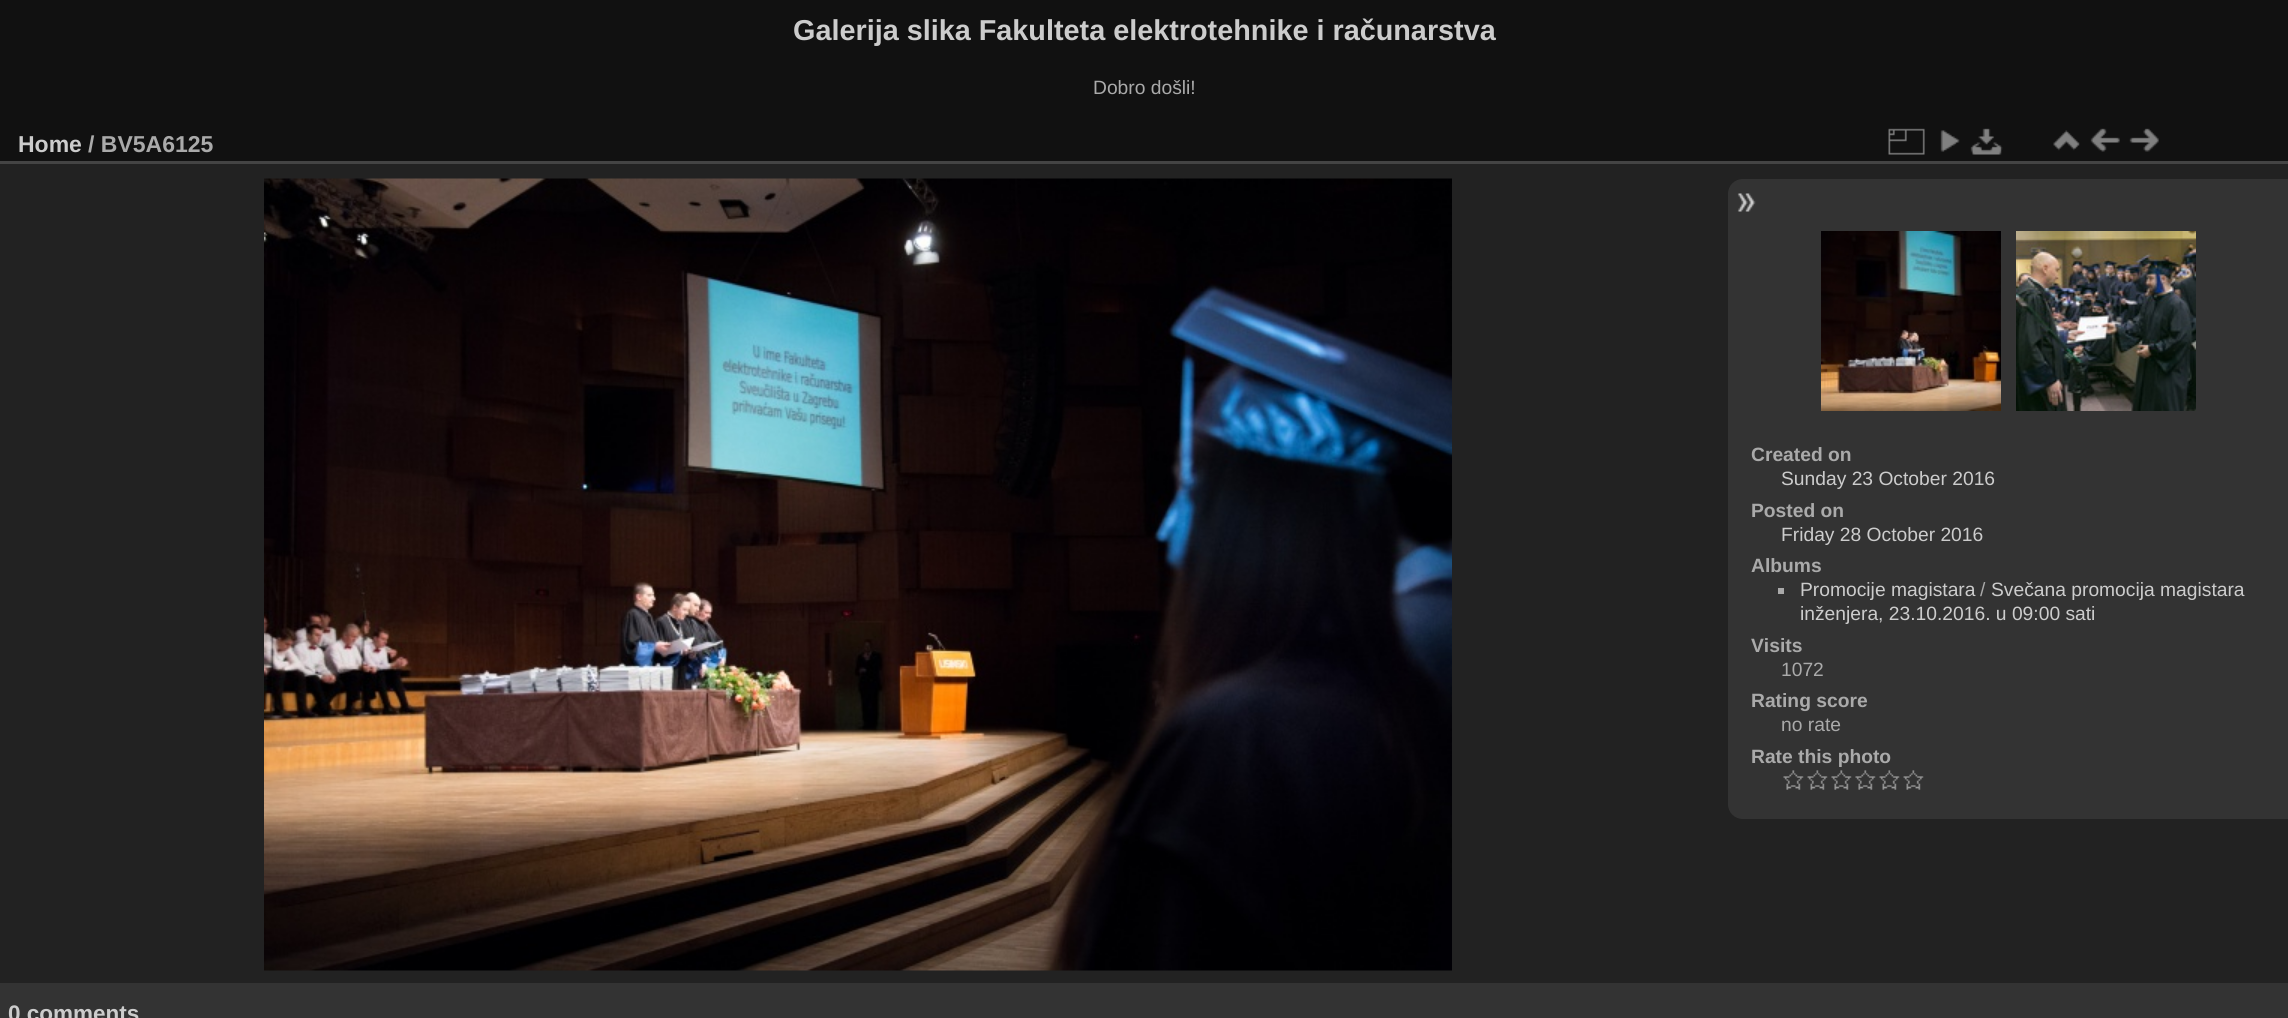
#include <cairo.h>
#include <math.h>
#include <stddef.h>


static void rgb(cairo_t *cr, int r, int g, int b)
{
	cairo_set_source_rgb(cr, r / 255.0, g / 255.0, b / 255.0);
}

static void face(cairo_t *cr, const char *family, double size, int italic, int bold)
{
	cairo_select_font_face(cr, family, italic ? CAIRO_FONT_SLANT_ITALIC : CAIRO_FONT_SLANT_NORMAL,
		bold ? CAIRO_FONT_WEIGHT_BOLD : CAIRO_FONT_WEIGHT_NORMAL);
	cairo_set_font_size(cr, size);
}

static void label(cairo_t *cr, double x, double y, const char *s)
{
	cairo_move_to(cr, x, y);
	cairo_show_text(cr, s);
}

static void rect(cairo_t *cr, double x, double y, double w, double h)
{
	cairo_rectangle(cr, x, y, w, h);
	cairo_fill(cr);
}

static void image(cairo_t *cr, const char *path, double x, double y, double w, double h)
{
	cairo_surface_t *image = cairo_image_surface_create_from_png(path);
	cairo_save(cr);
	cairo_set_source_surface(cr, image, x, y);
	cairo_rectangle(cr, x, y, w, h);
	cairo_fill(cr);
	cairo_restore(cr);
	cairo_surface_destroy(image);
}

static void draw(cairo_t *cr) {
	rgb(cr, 17, 17, 17);
	cairo_paint(cr);
	face(cr, "Liberation Sans", 28.8, 0, 1);
	rgb(cr, 204, 204, 204);
	label(cr, 793, 40, "Galerija slika Fakulteta elektrotehnike i računarstva");
	face(cr, "Liberation Sans", 19.25, 0, 0);
	rgb(cr, 170, 170, 170);
	label(cr, 1093, 94, "Dobro došli!");
	rgb(cr, 34, 34, 34);
	rect(cr, 0, 164, 2288, 819);
	rgb(cr, 68, 68, 68);
	rect(cr, 0, 161, 2288, 3);
	face(cr, "Liberation Sans", 23, 0, 1);
	rgb(cr, 204, 204, 204);
	label(cr, 18, 152, "Home");
	rgb(cr, 170, 170, 170);
	label(cr, 88, 152, "/ BV5A6125");
	image(cr, "image0.png", 1888, 128, 37, 27);
	image(cr, "image1.png", 1940, 130, 20, 22);
	image(cr, "image2.png", 1970, 128, 33, 27);
	image(cr, "image3.png", 2053, 130, 27, 21);
	image(cr, "image4.png", 2090, 128, 30, 24);
	image(cr, "image5.png", 2129, 128, 30, 24);
	image(cr, "image6.png", 264, 178, 1188, 793);
	rgb(cr, 51, 51, 51);
	cairo_new_path(cr);
	cairo_move_to(cr, 1743, 179);
	cairo_line_to(cr, 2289, 179);
	cairo_line_to(cr, 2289, 819);
	cairo_line_to(cr, 1743, 819);
	cairo_curve_to(cr, 1734.5, 819, 1728, 812.5, 1728, 804);
	cairo_line_to(cr, 1728, 194);
	cairo_curve_to(cr, 1728, 185.5, 1734.5, 179, 1743, 179);
	cairo_close_path(cr);
	cairo_fill(cr);
	image(cr, "image7.png", 1737, 193, 19, 19);
	image(cr, "image8.png", 1821, 231, 180, 180);
	image(cr, "image9.png", 2016, 231, 180, 180);
	face(cr, "Liberation Sans", 19.25, 0, 1);
	rgb(cr, 170, 170, 170);
	label(cr, 1751, 461, "Created on");
	face(cr, "Liberation Sans", 19.25, 0, 0);
	rgb(cr, 204, 204, 204);
	label(cr, 1781, 485, "Sunday 23 October 2016");
	face(cr, "Liberation Sans", 19.25, 0, 1);
	rgb(cr, 170, 170, 170);
	label(cr, 1751, 517, "Posted on");
	face(cr, "Liberation Sans", 19.25, 0, 0);
	rgb(cr, 204, 204, 204);
	label(cr, 1781, 541, "Friday 28 October 2016");
	face(cr, "Liberation Sans", 19.25, 0, 1);
	rgb(cr, 170, 170, 170);
	label(cr, 1751, 572, "Albums");
	rect(cr, 1778, 588, 6, 6);
	face(cr, "Liberation Sans", 19.25, 0, 0);
	rgb(cr, 204, 204, 204);
	label(cr, 1800, 596, "Promocije magistara");
	rgb(cr, 170, 170, 170);
	label(cr, 1980, 596, "/");
	rgb(cr, 204, 204, 204);
	label(cr, 1991, 596, "Svečana promocija magistara");
	label(cr, 1800, 620, "inženjera, 23.10.2016. u 09:00 sati");
	face(cr, "Liberation Sans", 19.25, 0, 1);
	rgb(cr, 170, 170, 170);
	label(cr, 1751, 652, "Visits");
	face(cr, "Liberation Sans", 19.25, 0, 0);
	label(cr, 1781, 676, "1072");
	face(cr, "Liberation Sans", 19.25, 0, 1);
	label(cr, 1751, 707, "Rating score");
	face(cr, "Liberation Sans", 19.25, 0, 0);
	label(cr, 1781, 731, "no rate");
	face(cr, "Liberation Sans", 19.25, 0, 1);
	label(cr, 1751, 763, "Rate this photo");
	image(cr, "image10.png", 1783, 770, 21, 20);
	image(cr, "image11.png", 1807, 770, 21, 20);
	image(cr, "image10.png", 1831, 770, 21, 20);
	image(cr, "image10.png", 1855, 770, 21, 20);
	image(cr, "image11.png", 1879, 770, 21, 20);
	image(cr, "image11.png", 1903, 770, 21, 20);
	rgb(cr, 51, 51, 51);
	rect(cr, 0, 983, 2288, 35);
	face(cr, "Liberation Sans", 22.5, 0, 1);
	rgb(cr, 204, 204, 204);
	label(cr, 8, 1021, "0 comments");
}

int main(void) {
	cairo_surface_t *surface = cairo_image_surface_create(CAIRO_FORMAT_RGB24, 2288, 1018);
	cairo_t *cr = cairo_create(surface);
	cairo_font_options_t *options = cairo_font_options_create();
	cairo_font_options_set_hint_metrics(options, CAIRO_HINT_METRICS_OFF);
	cairo_font_options_set_hint_style(options, CAIRO_HINT_STYLE_NONE);
	cairo_set_font_options(cr, options);
	cairo_set_miter_limit(cr, 4);
	draw(cr);
	cairo_surface_write_to_png(surface, "render.png");
	cairo_font_options_destroy(options);
	cairo_destroy(cr);
	cairo_surface_destroy(surface);
	return 0;
}
